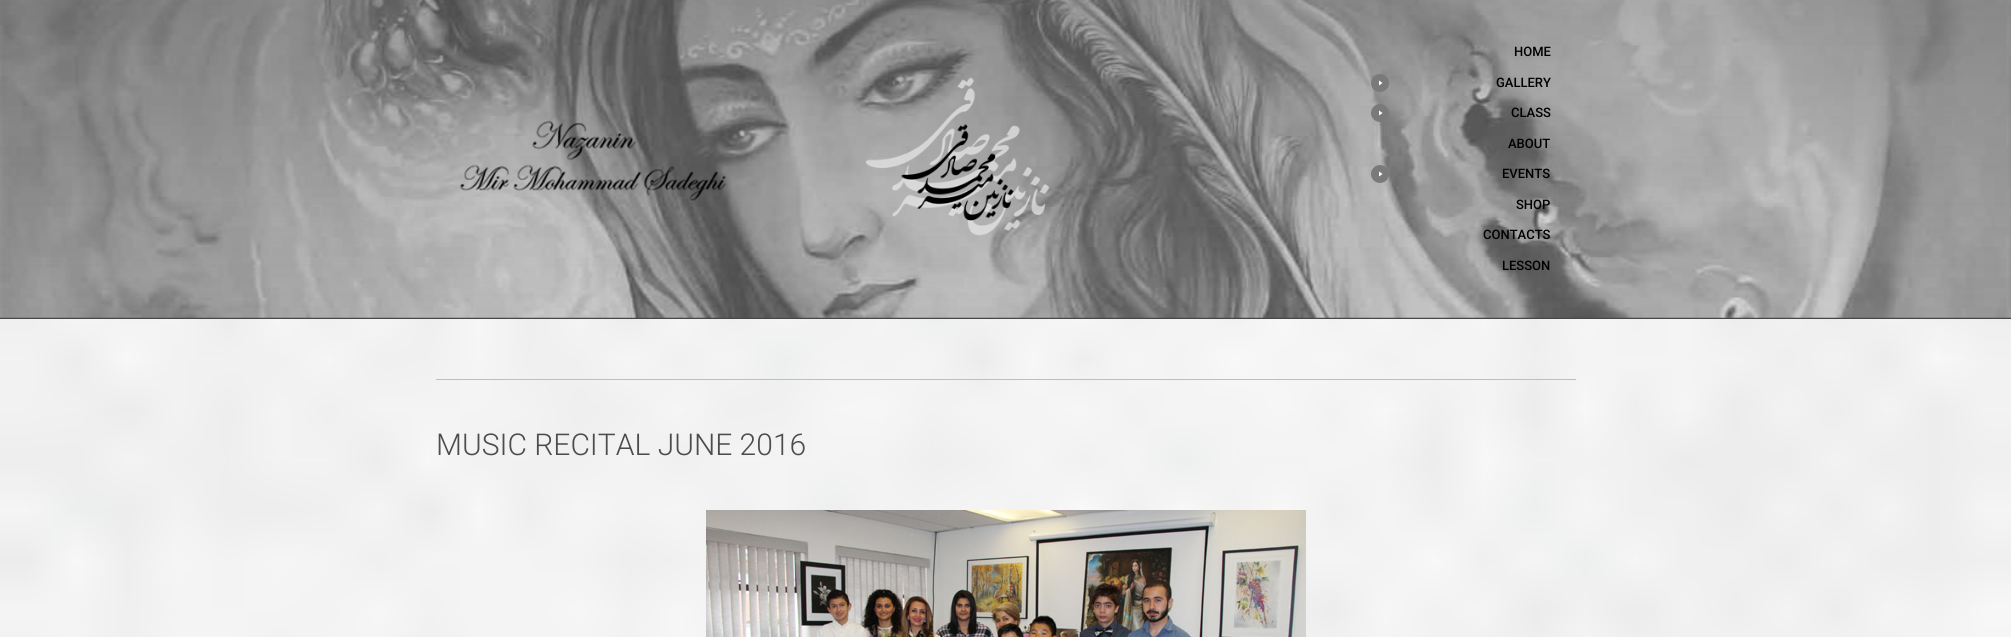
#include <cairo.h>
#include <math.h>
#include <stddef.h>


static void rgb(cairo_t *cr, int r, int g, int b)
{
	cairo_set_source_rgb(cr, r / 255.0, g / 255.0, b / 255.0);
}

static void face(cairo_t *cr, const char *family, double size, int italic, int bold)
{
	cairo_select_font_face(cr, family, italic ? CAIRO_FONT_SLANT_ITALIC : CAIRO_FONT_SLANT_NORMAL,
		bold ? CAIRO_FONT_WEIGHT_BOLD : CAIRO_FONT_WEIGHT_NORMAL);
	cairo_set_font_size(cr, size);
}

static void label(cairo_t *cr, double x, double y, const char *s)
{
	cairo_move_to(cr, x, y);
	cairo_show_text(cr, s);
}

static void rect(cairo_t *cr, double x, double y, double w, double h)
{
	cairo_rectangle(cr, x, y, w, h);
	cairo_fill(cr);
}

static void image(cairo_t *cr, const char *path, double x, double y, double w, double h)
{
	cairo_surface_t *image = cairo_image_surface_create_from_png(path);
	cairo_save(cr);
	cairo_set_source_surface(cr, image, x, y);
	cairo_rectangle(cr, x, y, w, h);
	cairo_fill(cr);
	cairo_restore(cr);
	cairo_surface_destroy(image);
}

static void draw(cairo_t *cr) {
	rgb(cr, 255, 255, 255);
	cairo_paint(cr);
	image(cr, "image0.png", 0, 0, 2011, 319);
	image(cr, "image1.png", 460, 77, 590, 159);
	face(cr, "Roboto Medium", 13, 0, 0);
	rgb(cr, 0, 0, 0);
	label(cr, 1514, 56, "HOME");
	rgb(cr, 122, 122, 122);
	cairo_new_path(cr);
	cairo_arc(cr, 1380, 83, 9, 0, 2 * M_PI);
	cairo_fill(cr);
	rgb(cr, 255, 255, 255);
	cairo_new_path(cr);
	cairo_move_to(cr, 1379, 80.5);
	cairo_line_to(cr, 1382.5, 83);
	cairo_line_to(cr, 1379, 85.5);
	cairo_close_path(cr);
	cairo_fill(cr);
	rgb(cr, 0, 0, 0);
	label(cr, 1496, 87, "GALLERY");
	rgb(cr, 122, 122, 122);
	cairo_new_path(cr);
	cairo_arc(cr, 1380, 113, 9, 0, 2 * M_PI);
	cairo_fill(cr);
	rgb(cr, 255, 255, 255);
	cairo_new_path(cr);
	cairo_move_to(cr, 1379, 110.5);
	cairo_line_to(cr, 1382.5, 113);
	cairo_line_to(cr, 1379, 115.5);
	cairo_close_path(cr);
	cairo_fill(cr);
	rgb(cr, 0, 0, 0);
	label(cr, 1511, 117, "CLASS");
	label(cr, 1508, 148, "ABOUT");
	rgb(cr, 122, 122, 122);
	cairo_new_path(cr);
	cairo_arc(cr, 1380, 174, 9, 0, 2 * M_PI);
	cairo_fill(cr);
	rgb(cr, 255, 255, 255);
	cairo_new_path(cr);
	cairo_move_to(cr, 1379, 171.5);
	cairo_line_to(cr, 1382.5, 174);
	cairo_line_to(cr, 1379, 176.5);
	cairo_close_path(cr);
	cairo_fill(cr);
	rgb(cr, 0, 0, 0);
	label(cr, 1502, 178, "EVENTS");
	label(cr, 1516, 209, "SHOP");
	label(cr, 1483, 239, "CONTACTS");
	label(cr, 1502, 270, "LESSON");
	image(cr, "image2.png", 0, 319, 2011, 318);
	rgb(cr, 190, 190, 190);
	rect(cr, 436, 379, 1140, 1);
	face(cr, "Roboto Light", 30, 0, 0);
	rgb(cr, 76, 76, 76);
	label(cr, 436, 455, "MUSIC RECITAL JUNE 2016");
	image(cr, "image3.png", 706, 510, 600, 127);
}

int main(void) {
	cairo_surface_t *surface = cairo_image_surface_create(CAIRO_FORMAT_RGB24, 2011, 637);
	cairo_t *cr = cairo_create(surface);
	cairo_font_options_t *options = cairo_font_options_create();
	cairo_font_options_set_hint_metrics(options, CAIRO_HINT_METRICS_OFF);
	cairo_font_options_set_hint_style(options, CAIRO_HINT_STYLE_NONE);
	cairo_set_font_options(cr, options);
	cairo_set_miter_limit(cr, 4);
	draw(cr);
	cairo_surface_write_to_png(surface, "render.png");
	cairo_font_options_destroy(options);
	cairo_destroy(cr);
	cairo_surface_destroy(surface);
	return 0;
}
